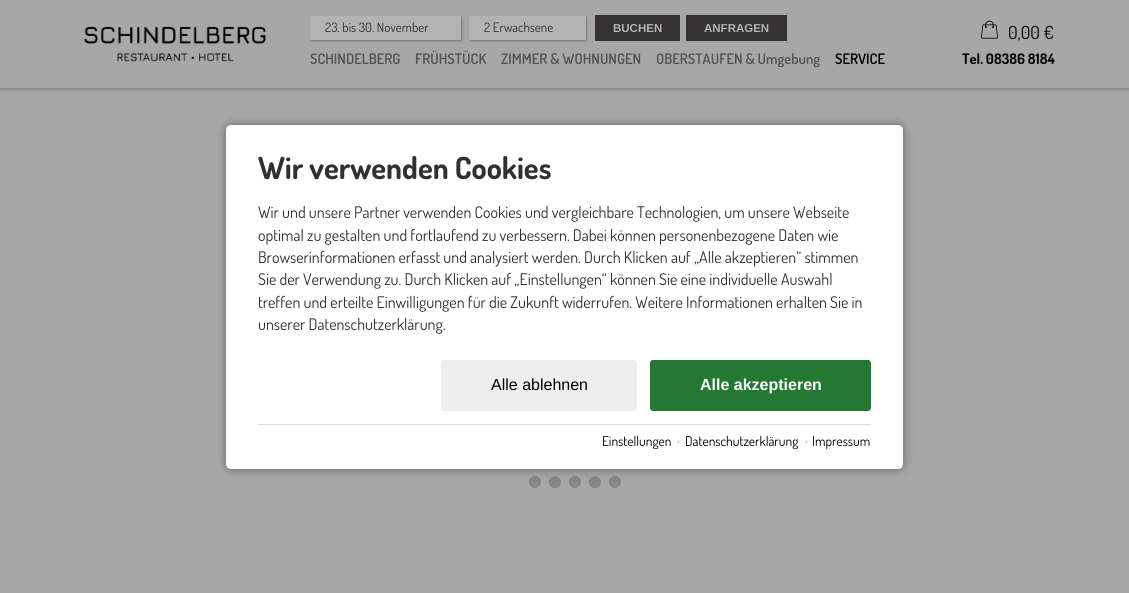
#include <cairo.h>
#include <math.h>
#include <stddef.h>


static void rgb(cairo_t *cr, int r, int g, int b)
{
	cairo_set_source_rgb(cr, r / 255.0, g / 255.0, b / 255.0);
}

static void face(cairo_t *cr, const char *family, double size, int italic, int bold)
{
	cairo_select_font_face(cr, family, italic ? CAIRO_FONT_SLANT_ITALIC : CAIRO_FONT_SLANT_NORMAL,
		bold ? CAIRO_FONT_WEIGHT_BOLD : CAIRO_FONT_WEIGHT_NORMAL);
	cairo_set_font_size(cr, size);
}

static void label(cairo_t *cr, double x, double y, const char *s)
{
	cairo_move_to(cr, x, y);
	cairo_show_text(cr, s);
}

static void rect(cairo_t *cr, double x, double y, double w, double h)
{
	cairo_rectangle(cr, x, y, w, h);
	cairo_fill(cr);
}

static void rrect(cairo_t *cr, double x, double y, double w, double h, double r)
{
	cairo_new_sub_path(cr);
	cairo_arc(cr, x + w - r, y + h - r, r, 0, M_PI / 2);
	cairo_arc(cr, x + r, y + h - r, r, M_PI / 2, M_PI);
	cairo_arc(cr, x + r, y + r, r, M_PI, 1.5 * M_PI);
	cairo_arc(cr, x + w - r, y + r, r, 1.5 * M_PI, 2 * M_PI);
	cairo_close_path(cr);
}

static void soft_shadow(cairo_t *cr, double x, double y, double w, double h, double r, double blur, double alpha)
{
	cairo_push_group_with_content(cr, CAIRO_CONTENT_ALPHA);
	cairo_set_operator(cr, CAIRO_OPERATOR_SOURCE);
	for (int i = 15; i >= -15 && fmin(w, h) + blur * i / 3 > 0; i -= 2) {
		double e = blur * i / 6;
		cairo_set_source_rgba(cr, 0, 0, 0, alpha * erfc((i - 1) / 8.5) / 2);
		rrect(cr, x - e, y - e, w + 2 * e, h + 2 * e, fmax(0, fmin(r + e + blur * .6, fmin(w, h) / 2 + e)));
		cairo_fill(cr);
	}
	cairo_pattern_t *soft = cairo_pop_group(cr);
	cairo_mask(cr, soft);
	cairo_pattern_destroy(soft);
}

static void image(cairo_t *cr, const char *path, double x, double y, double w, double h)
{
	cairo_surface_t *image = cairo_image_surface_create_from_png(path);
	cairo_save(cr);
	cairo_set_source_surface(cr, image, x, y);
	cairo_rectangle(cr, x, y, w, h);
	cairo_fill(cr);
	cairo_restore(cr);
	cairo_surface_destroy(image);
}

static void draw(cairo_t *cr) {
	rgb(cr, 167, 167, 167);
	cairo_paint(cr);
	cairo_save(cr);
	cairo_rectangle(cr, 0, 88, 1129, 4);
	cairo_clip(cr);
	rgb(cr, 0, 0, 0);
	soft_shadow(cr, 0, 0, 1129, 88, 0, 2.5, 0.4);
	cairo_restore(cr);
	rgb(cr, 0, 0, 0);
	soft_shadow(cr, 311, 17, 151, 24, 0, 1, 0.3);
	rgb(cr, 179, 179, 179);
	rect(cr, 310, 16, 151, 24);
	face(cr, "Dosis", 13, 0, 0);
	rgb(cr, 48, 48, 48);
	label(cr, 325, 32, "23. bis 30. November");
	rgb(cr, 0, 0, 0);
	soft_shadow(cr, 470, 17, 117, 24, 0, 1, 0.3);
	rgb(cr, 179, 179, 179);
	rect(cr, 469, 16, 117, 24);
	rgb(cr, 48, 48, 48);
	label(cr, 484, 32, "2 Erwachsene");
	rgb(cr, 52, 50, 51);
	rect(cr, 595, 15, 85, 26);
	face(cr, "Liberation Sans", 11.5, 0, 1);
	rgb(cr, 179, 179, 179);
	label(cr, 613, 32, "BUCHEN");
	rgb(cr, 52, 50, 51);
	rect(cr, 686, 15, 101, 26);
	rgb(cr, 179, 179, 179);
	label(cr, 704, 32, "ANFRAGEN");
	face(cr, "Dosis SemiBold", 14.5, 0, 0);
	rgb(cr, 83, 83, 83);
	label(cr, 310, 64, "SCHINDELBERG");
	label(cr, 415, 64, "FRÜHSTÜCK");
	label(cr, 501, 64, "ZIMMER & WOHNUNGEN");
	label(cr, 656, 64, "OBERSTAUFEN & Umgebung");
	rgb(cr, 0, 0, 0);
	label(cr, 835, 64, "SERVICE");
	face(cr, "Dosis", 14.5, 0, 1);
	label(cr, 962, 64, "Tel. 08386 8184");
	image(cr, "image0.png", 84, 26, 183, 36);
	image(cr, "image1.png", 981, 20, 17, 19);
	face(cr, "Dosis", 18, 0, 0);
	label(cr, 1008, 39, "0,00 €");
	face(cr, "Liberation Sans", 45, 0, 0);
	rgb(cr, 134, 134, 134);
	label(cr, 527, 497, "•");
	label(cr, 547, 497, "•");
	label(cr, 567, 497, "•");
	label(cr, 587, 497, "•");
	label(cr, 607, 497, "•");
	rgb(cr, 0, 0, 0);
	soft_shadow(cr, 226, 125, 677, 344, 5, 5, 0.4);
	rgb(cr, 255, 255, 255);
	rrect(cr, 226, 125, 677, 344, 5);
	cairo_fill(cr);
	face(cr, "Dosis", 30.5, 0, 1);
	rgb(cr, 48, 48, 48);
	label(cr, 258, 179, "Wir verwenden Cookies");
	face(cr, "Dosis", 16, 0, 0);
	label(cr, 258, 218, "Wir und unsere Partner verwenden Cookies und vergleichbare Technologien, um unsere Webseite");
	label(cr, 258, 241, "optimal zu gestalten und fortlaufend zu verbessern. Dabei können personenbezogene Daten wie");
	label(cr, 258, 263, "Browserinformationen erfasst und analysiert werden. Durch Klicken auf „Alle akzeptieren“ stimmen");
	label(cr, 258, 285, "Sie der Verwendung zu. Durch Klicken auf „Einstellungen“ können Sie eine individuelle Auswahl");
	label(cr, 258, 308, "treffen und erteilte Einwilligungen für die Zukunft widerrufen. Weitere Informationen erhalten Sie in");
	label(cr, 258, 330, "unserer Datenschutzerklärung.");
	rgb(cr, 238, 238, 238);
	rrect(cr, 441, 360, 196, 51, 3);
	cairo_fill(cr);
	face(cr, "Liberation Sans", 16, 0, 0);
	rgb(cr, 0, 0, 0);
	label(cr, 491, 390, "Alle ablehnen");
	rgb(cr, 37, 120, 50);
	rrect(cr, 650, 360, 221, 51, 3);
	cairo_fill(cr);
	face(cr, "Liberation Sans", 16, 0, 1);
	rgb(cr, 255, 255, 255);
	label(cr, 700, 390, "Alle akzeptieren");
	rgb(cr, 221, 221, 221);
	rect(cr, 258, 424, 613, 1);
	face(cr, "Dosis", 13.5, 0, 0);
	rgb(cr, 0, 0, 0);
	label(cr, 602, 446, "Einstellungen");
	rgb(cr, 68, 68, 68);
	label(cr, 677, 446, "·");
	rgb(cr, 0, 0, 0);
	label(cr, 685, 446, "Datenschutzerklärung");
	rgb(cr, 68, 68, 68);
	label(cr, 805, 446, "·");
	rgb(cr, 0, 0, 0);
	label(cr, 812, 446, "Impressum");
}

int main(void) {
	cairo_surface_t *surface = cairo_image_surface_create(CAIRO_FORMAT_RGB24, 1129, 593);
	cairo_t *cr = cairo_create(surface);
	cairo_font_options_t *options = cairo_font_options_create();
	cairo_font_options_set_hint_metrics(options, CAIRO_HINT_METRICS_OFF);
	cairo_font_options_set_hint_style(options, CAIRO_HINT_STYLE_NONE);
	cairo_set_font_options(cr, options);
	cairo_set_miter_limit(cr, 4);
	draw(cr);
	cairo_surface_write_to_png(surface, "render.png");
	cairo_font_options_destroy(options);
	cairo_destroy(cr);
	cairo_surface_destroy(surface);
	return 0;
}
